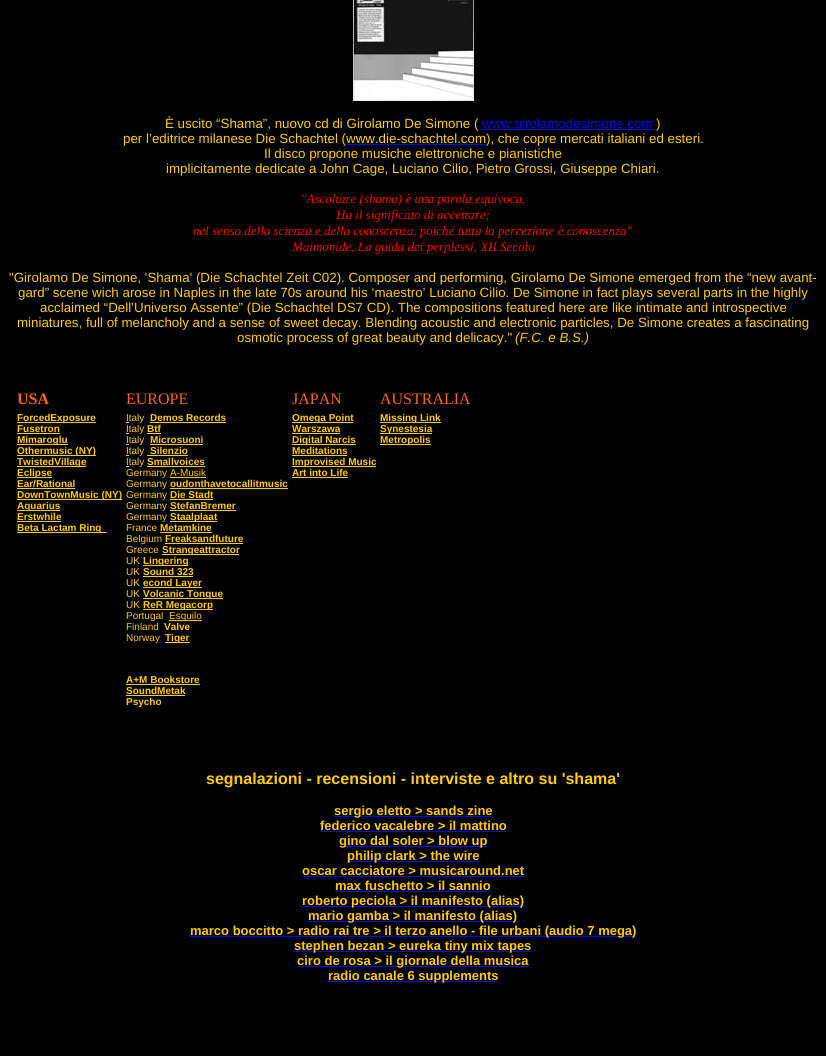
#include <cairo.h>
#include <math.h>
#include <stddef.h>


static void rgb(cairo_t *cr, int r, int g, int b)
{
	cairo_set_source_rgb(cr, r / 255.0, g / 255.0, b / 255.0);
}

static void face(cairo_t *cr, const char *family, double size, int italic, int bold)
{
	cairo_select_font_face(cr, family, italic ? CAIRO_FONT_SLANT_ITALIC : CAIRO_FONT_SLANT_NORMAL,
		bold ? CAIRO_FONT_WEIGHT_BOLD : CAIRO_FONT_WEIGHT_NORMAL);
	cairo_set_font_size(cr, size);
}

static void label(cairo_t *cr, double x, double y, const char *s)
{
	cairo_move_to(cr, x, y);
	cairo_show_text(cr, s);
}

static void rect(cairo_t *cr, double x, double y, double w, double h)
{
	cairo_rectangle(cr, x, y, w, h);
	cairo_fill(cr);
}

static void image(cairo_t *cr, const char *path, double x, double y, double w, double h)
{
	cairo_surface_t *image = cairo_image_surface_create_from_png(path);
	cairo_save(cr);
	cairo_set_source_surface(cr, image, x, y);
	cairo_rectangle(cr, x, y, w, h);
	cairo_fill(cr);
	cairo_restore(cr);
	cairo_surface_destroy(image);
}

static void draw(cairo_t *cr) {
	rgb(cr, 0, 0, 0);
	cairo_paint(cr);
	image(cr, "image0.png", 353, 0, 121, 101);
	face(cr, "Liberation Sans", 13.33, 0, 0);
	rgb(cr, 255, 204, 0);
	label(cr, 165, 128, "È uscito “Shama”, nuovo cd di Girolamo De Simone (");
	rgb(cr, 0, 0, 255);
	rect(cr, 482, 129, 171, 1);
	label(cr, 482, 128, "www.girolamodesimone.com");
	rgb(cr, 255, 204, 0);
	label(cr, 656, 128, ")");
	label(cr, 123, 143, "per l’editrice milanese Die Schachtel (www.die-schachtel.com");
	rgb(cr, 0, 0, 255);
	rect(cr, 346, 144, 140, 1);
	rgb(cr, 255, 204, 0);
	label(cr, 486, 143, "), che copre mercati italiani ed esteri.");
	label(cr, 264, 158, "Il disco propone musiche elettroniche e pianistiche");
	label(cr, 166, 173, "implicitamente dedicate a John Cage, Luciano Cilio, Pietro Grossi, Giuseppe Chiari.");
	face(cr, "Liberation Serif", 13, 1, 0);
	rgb(cr, 255, 0, 0);
	label(cr, 301, 203, "\"Ascoltare (shama) è una parola equivoca.");
	label(cr, 336, 219, "Ha il significato di accettare;");
	label(cr, 193, 235, "nel senso della scienza e della conoscenza, poiché tutta la percezione è conoscenza\"");
	label(cr, 292, 251, "Maimonide, La guida dei perplessi, XII Secolo");
	face(cr, "Liberation Sans", 13.33, 0, 0);
	rgb(cr, 255, 204, 0);
	label(cr, 9, 282, "\"Girolamo De Simone, 'Shama' (Die Schachtel Zeit C02). Composer and performing, Girolamo De Simone emerged from the “new avant-");
	label(cr, 18, 297, "gard” scene wich arose in Naples in the late 70s around his ‘maestro’ Luciano Cilio. De Simone in fact plays several parts in the highly");
	label(cr, 40, 312, "acclaimed “Dell’Universo Assente” (Die Schachtel DS7 CD). The compositions featured here are like intimate and introspective");
	label(cr, 17, 327, "miniatures, full of melancholy and a sense of sweet decay. Blending acoustic and electronic particles, De Simone creates a fascinating");
	label(cr, 237, 342, "osmotic process of great beauty and delicacy.\"");
	face(cr, "Liberation Sans", 13.33, 1, 0);
	label(cr, 515, 342, "(F.C. e B.S.)");
	face(cr, "Liberation Serif", 16, 0, 1);
	rgb(cr, 255, 102, 0);
	label(cr, 17, 404, "USA");
	face(cr, "Liberation Serif", 16, 0, 0);
	label(cr, 126, 404, "EUROPE");
	label(cr, 292, 404, "JAPAN");
	label(cr, 380, 404, "AUSTRALIA");
	rgb(cr, 255, 204, 0);
	rect(cr, 17, 422, 79, 1);
	face(cr, "Liberation Sans", 10, 0, 1);
	label(cr, 17, 421, "ForcedExposure");
	label(cr, 17, 432, "Fusetron");
	rect(cr, 17, 433, 43, 1);
	rect(cr, 17, 444, 51, 1);
	label(cr, 17, 443, "Mimaroglu");
	rect(cr, 17, 455, 79, 1);
	label(cr, 17, 454, "Othermusic (NY)");
	rect(cr, 17, 466, 69, 1);
	label(cr, 17, 465, "TwistedVillage");
	rect(cr, 17, 477, 35, 1);
	label(cr, 17, 476, "Eclipse");
	label(cr, 17, 487, "Ear/Rational");
	rect(cr, 17, 488, 58, 1);
	rect(cr, 17, 499, 105, 1);
	label(cr, 17, 498, "DownTownMusic (NY)");
	rect(cr, 17, 510, 43, 1);
	label(cr, 17, 509, "Aquarius");
	label(cr, 17, 520, "Erstwhile");
	rect(cr, 17, 521, 44, 1);
	rect(cr, 17, 532, 90, 1);
	label(cr, 17, 531, "Beta Lactam Ring");
	rect(cr, 126, 422, 3, 1);
	face(cr, "Liberation Sans", 10, 0, 0);
	label(cr, 126, 421, "Italy");
	face(cr, "Liberation Sans", 10, 0, 1);
	label(cr, 150, 421, "Demos Records");
	rect(cr, 150, 422, 76, 1);
	rect(cr, 126, 433, 3, 1);
	face(cr, "Liberation Sans", 10, 0, 0);
	label(cr, 126, 432, "Italy");
	face(cr, "Liberation Sans", 10, 0, 1);
	label(cr, 147, 432, "Btf");
	rect(cr, 147, 433, 14, 1);
	rect(cr, 126, 444, 3, 1);
	face(cr, "Liberation Sans", 10, 0, 0);
	label(cr, 126, 443, "Italy");
	face(cr, "Liberation Sans", 10, 0, 1);
	label(cr, 150, 443, "Microsuoni");
	rect(cr, 150, 444, 53, 1);
	rect(cr, 126, 455, 3, 1);
	face(cr, "Liberation Sans", 10, 0, 0);
	label(cr, 126, 454, "Italy");
	face(cr, "Liberation Sans", 10, 0, 1);
	label(cr, 150, 454, "Silenzio");
	rect(cr, 147, 455, 41, 1);
	rect(cr, 126, 466, 3, 1);
	face(cr, "Liberation Sans", 10, 0, 0);
	label(cr, 126, 465, "Italy");
	face(cr, "Liberation Sans", 10, 0, 1);
	label(cr, 147, 465, "Smallvoices");
	rect(cr, 147, 466, 58, 1);
	face(cr, "Liberation Sans", 10, 0, 0);
	label(cr, 126, 476, "Germany A-Musik");
	rect(cr, 170, 477, 36, 1);
	label(cr, 126, 487, "Germany");
	face(cr, "Liberation Sans", 10, 0, 1);
	label(cr, 170, 487, "oudonthavetocallitmusic");
	rect(cr, 170, 488, 118, 1);
	face(cr, "Liberation Sans", 10, 0, 0);
	label(cr, 126, 498, "Germany");
	face(cr, "Liberation Sans", 10, 0, 1);
	label(cr, 170, 498, "Die Stadt");
	rect(cr, 170, 499, 43, 1);
	face(cr, "Liberation Sans", 10, 0, 0);
	label(cr, 126, 509, "Germany");
	face(cr, "Liberation Sans", 10, 0, 1);
	label(cr, 170, 509, "StefanBremer");
	rect(cr, 170, 510, 66, 1);
	face(cr, "Liberation Sans", 10, 0, 0);
	label(cr, 126, 520, "Germany");
	rect(cr, 170, 521, 47, 1);
	face(cr, "Liberation Sans", 10, 0, 1);
	label(cr, 170, 520, "Staalplaat");
	face(cr, "Liberation Sans", 10, 0, 0);
	label(cr, 126, 531, "France");
	face(cr, "Liberation Sans", 10, 0, 1);
	label(cr, 160, 531, "Metamkine");
	rect(cr, 160, 532, 52, 1);
	face(cr, "Liberation Sans", 10, 0, 0);
	label(cr, 126, 542, "Belgium");
	face(cr, "Liberation Sans", 10, 0, 1);
	label(cr, 165, 542, "Freaksandfuture");
	rect(cr, 165, 543, 78, 1);
	face(cr, "Liberation Sans", 10, 0, 0);
	label(cr, 126, 553, "Greece");
	rect(cr, 162, 554, 77, 1);
	face(cr, "Liberation Sans", 10, 0, 1);
	label(cr, 162, 553, "Strangeattractor");
	face(cr, "Liberation Sans", 10, 0, 0);
	label(cr, 126, 564, "UK");
	rect(cr, 143, 565, 45, 1);
	face(cr, "Liberation Sans", 10, 0, 1);
	label(cr, 143, 564, "Lingering");
	face(cr, "Liberation Sans", 10, 0, 0);
	label(cr, 126, 575, "UK");
	face(cr, "Liberation Sans", 10, 0, 1);
	label(cr, 143, 575, "Sound 323");
	rect(cr, 143, 576, 50, 1);
	face(cr, "Liberation Sans", 10, 0, 0);
	label(cr, 126, 586, "UK");
	rect(cr, 143, 587, 59, 1);
	face(cr, "Liberation Sans", 10, 0, 1);
	label(cr, 143, 586, "econd Layer");
	face(cr, "Liberation Sans", 10, 0, 0);
	label(cr, 126, 597, "UK");
	rect(cr, 143, 598, 80, 1);
	face(cr, "Liberation Sans", 10, 0, 1);
	label(cr, 143, 597, "Volcanic Tongue");
	face(cr, "Liberation Sans", 10, 0, 0);
	label(cr, 126, 608, "UK");
	rect(cr, 143, 609, 70, 1);
	face(cr, "Liberation Sans", 10, 0, 1);
	label(cr, 143, 608, "ReR Megacorp");
	face(cr, "Liberation Sans", 10, 0, 0);
	label(cr, 126, 619, "Portugal");
	rect(cr, 169, 620, 33, 1);
	label(cr, 169, 619, "Esquilo");
	label(cr, 126, 630, "Finland");
	face(cr, "Liberation Sans", 10, 0, 1);
	label(cr, 164, 630, "Valve");
	face(cr, "Liberation Sans", 10, 0, 0);
	label(cr, 126, 641, "Norway");
	rect(cr, 165, 642, 25, 1);
	face(cr, "Liberation Sans", 10, 0, 1);
	label(cr, 165, 641, "Tiger");
	label(cr, 126, 683, "A+M Bookstore");
	rect(cr, 126, 684, 74, 1);
	label(cr, 126, 694, "SoundMetak");
	rect(cr, 126, 695, 59, 1);
	label(cr, 126, 705, "Psycho");
	rect(cr, 292, 422, 61, 1);
	label(cr, 292, 421, "Omega Point");
	label(cr, 292, 432, "Warszawa");
	rect(cr, 292, 433, 48, 1);
	rect(cr, 292, 444, 64, 1);
	label(cr, 292, 443, "Digital Narcis");
	label(cr, 292, 454, "Meditations");
	rect(cr, 292, 455, 55, 1);
	rect(cr, 292, 466, 84, 1);
	label(cr, 292, 465, "Improvised Music");
	label(cr, 292, 476, "Art into Life");
	rect(cr, 292, 477, 56, 1);
	rect(cr, 380, 422, 61, 1);
	label(cr, 380, 421, "Missing Link");
	rect(cr, 380, 433, 52, 1);
	label(cr, 380, 432, "Synestesia");
	rect(cr, 380, 444, 51, 1);
	label(cr, 380, 443, "Metropolis");
	face(cr, "Liberation Sans", 16, 0, 1);
	label(cr, 206, 784, "segnalazioni - recensioni - interviste e altro su 'shama'");
	rgb(cr, 0, 0, 255);
	rect(cr, 334, 816, 158, 1);
	face(cr, "Liberation Sans", 13, 0, 1);
	rgb(cr, 255, 204, 0);
	label(cr, 334, 815, "sergio eletto > sands zine");
	label(cr, 320, 830, "federico vacalebre > il mattino");
	rgb(cr, 0, 0, 255);
	rect(cr, 320, 831, 186, 1);
	rect(cr, 339, 846, 148, 1);
	rgb(cr, 255, 204, 0);
	label(cr, 339, 845, "gino dal soler > blow up");
	rgb(cr, 0, 0, 255);
	rect(cr, 347, 861, 132, 1);
	rgb(cr, 255, 204, 0);
	label(cr, 347, 860, "philip clark > the wire");
	label(cr, 302, 875, "oscar cacciatore > musicaround.net");
	rgb(cr, 0, 0, 255);
	rect(cr, 302, 876, 222, 1);
	rgb(cr, 255, 204, 0);
	label(cr, 335, 890, "max fuschetto > il sannio");
	rgb(cr, 0, 0, 255);
	rect(cr, 335, 891, 156, 1);
	rect(cr, 302, 906, 222, 1);
	rgb(cr, 255, 204, 0);
	label(cr, 302, 905, "roberto peciola > il manifesto (alias)");
	rgb(cr, 0, 0, 255);
	rect(cr, 308, 921, 210, 1);
	rgb(cr, 255, 204, 0);
	label(cr, 308, 920, "mario gamba > il manifesto (alias)");
	rgb(cr, 0, 0, 255);
	rect(cr, 190, 936, 446, 1);
	rgb(cr, 255, 204, 0);
	label(cr, 190, 935, "marco boccitto > radio rai tre > il terzo anello - file urbani (audio 7 mega)");
	rgb(cr, 0, 0, 255);
	rect(cr, 294, 951, 238, 1);
	rgb(cr, 255, 204, 0);
	label(cr, 294, 950, "stephen bezan > eureka tiny mix tapes");
	rgb(cr, 0, 0, 255);
	rect(cr, 297, 966, 232, 1);
	rgb(cr, 255, 204, 0);
	label(cr, 297, 965, "ciro de rosa > il giornale della musica");
	rgb(cr, 0, 0, 255);
	rect(cr, 328, 981, 170, 1);
	rgb(cr, 255, 204, 0);
	label(cr, 328, 980, "radio canale 6 supplements");
}

int main(void) {
	cairo_surface_t *surface = cairo_image_surface_create(CAIRO_FORMAT_RGB24, 826, 1056);
	cairo_t *cr = cairo_create(surface);
	cairo_font_options_t *options = cairo_font_options_create();
	cairo_font_options_set_hint_metrics(options, CAIRO_HINT_METRICS_OFF);
	cairo_font_options_set_hint_style(options, CAIRO_HINT_STYLE_NONE);
	cairo_set_font_options(cr, options);
	cairo_set_miter_limit(cr, 4);
	draw(cr);
	cairo_surface_write_to_png(surface, "render.png");
	cairo_font_options_destroy(options);
	cairo_destroy(cr);
	cairo_surface_destroy(surface);
	return 0;
}
